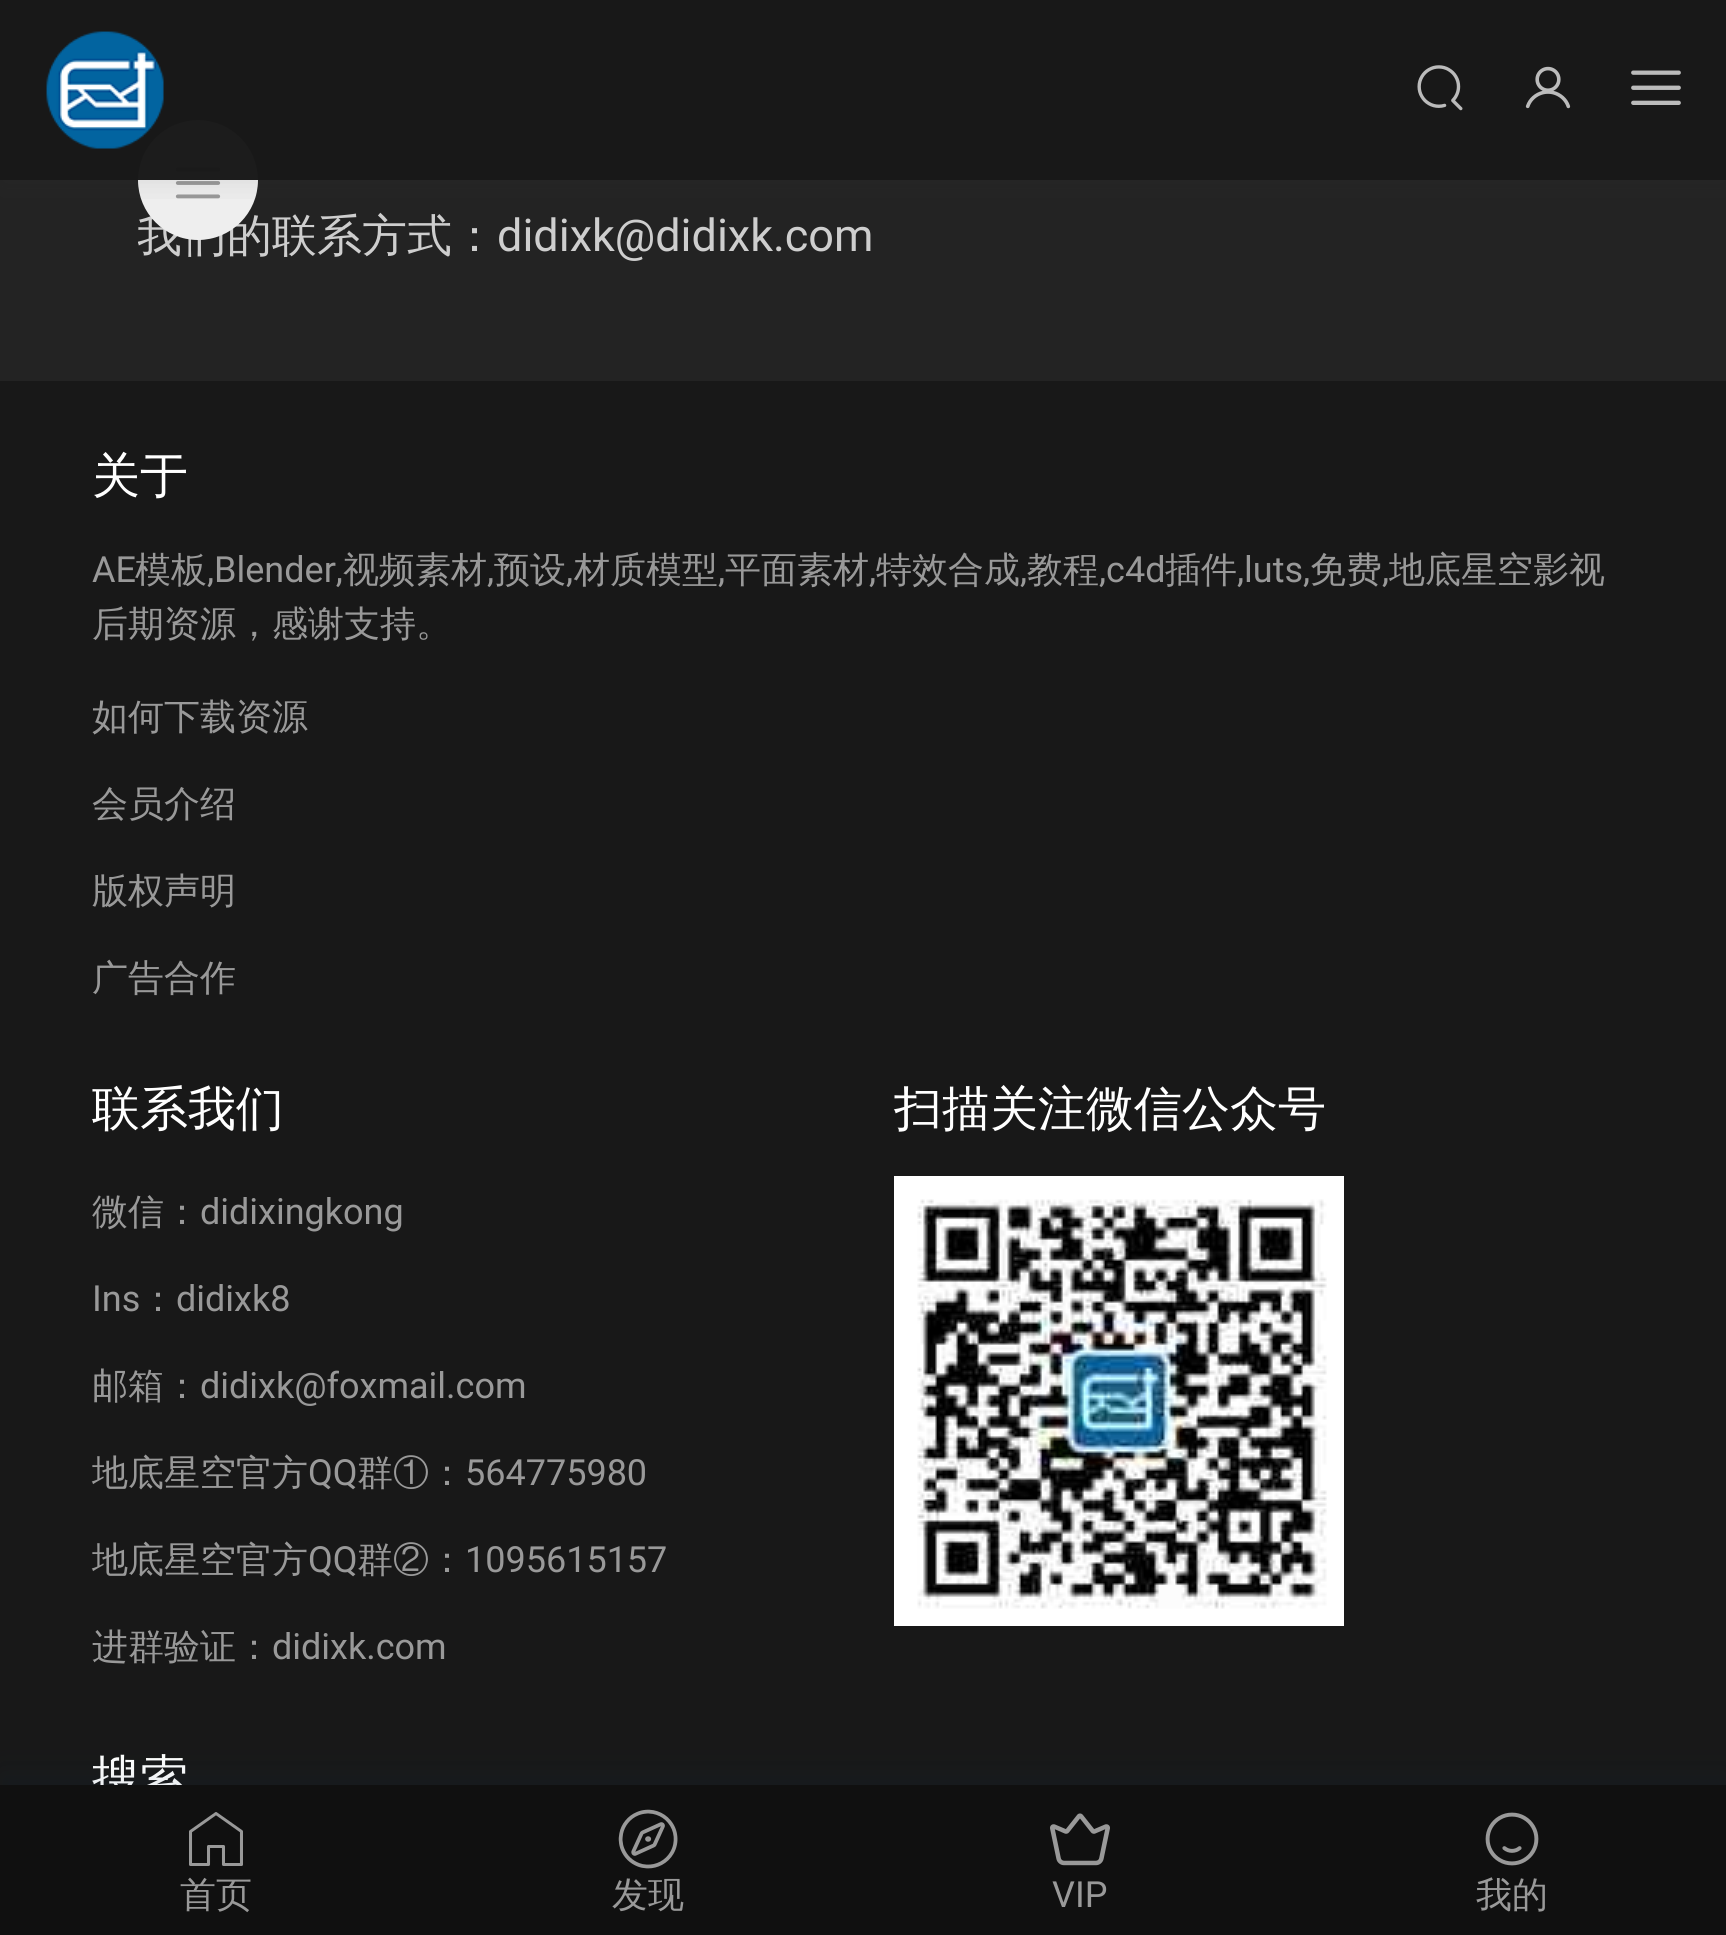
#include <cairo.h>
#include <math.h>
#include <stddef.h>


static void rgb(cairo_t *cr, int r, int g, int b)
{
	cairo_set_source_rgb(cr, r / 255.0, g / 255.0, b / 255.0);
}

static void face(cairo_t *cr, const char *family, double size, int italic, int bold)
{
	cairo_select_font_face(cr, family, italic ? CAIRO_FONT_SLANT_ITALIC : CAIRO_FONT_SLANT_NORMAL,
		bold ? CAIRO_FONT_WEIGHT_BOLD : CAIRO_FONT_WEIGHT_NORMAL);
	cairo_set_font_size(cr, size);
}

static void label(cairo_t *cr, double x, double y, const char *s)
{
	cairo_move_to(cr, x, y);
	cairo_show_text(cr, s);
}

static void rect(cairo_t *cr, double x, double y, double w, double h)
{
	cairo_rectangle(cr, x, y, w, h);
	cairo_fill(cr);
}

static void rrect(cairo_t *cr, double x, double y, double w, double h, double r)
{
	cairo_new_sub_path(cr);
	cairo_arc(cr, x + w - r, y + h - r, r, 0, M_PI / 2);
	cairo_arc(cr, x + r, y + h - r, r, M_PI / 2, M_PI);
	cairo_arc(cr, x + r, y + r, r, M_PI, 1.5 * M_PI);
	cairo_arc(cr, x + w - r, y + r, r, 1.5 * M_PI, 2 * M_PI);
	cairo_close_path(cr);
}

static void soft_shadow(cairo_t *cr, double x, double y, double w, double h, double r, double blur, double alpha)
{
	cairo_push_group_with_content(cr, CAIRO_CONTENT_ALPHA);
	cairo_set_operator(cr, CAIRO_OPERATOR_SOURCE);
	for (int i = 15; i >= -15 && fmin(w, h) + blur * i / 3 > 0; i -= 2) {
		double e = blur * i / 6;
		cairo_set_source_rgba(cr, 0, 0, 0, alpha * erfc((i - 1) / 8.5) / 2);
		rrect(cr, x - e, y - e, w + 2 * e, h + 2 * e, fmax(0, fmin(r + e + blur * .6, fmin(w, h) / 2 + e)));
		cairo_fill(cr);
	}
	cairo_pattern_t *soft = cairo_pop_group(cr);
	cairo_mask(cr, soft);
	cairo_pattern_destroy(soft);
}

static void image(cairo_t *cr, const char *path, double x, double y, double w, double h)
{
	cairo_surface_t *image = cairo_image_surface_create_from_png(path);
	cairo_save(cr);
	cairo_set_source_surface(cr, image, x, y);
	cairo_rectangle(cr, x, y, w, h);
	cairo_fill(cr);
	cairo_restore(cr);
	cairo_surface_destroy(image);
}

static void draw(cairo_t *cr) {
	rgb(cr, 35, 35, 35);
	cairo_paint(cr);
	cairo_save(cr);
	cairo_rectangle(cr, 138, 201, 1455, 75);
	cairo_clip(cr);
	face(cr, "WenQuanYi Zen Hei Medium", 45, 0, 0);
	rgb(cr, 206, 206, 206);
	label(cr, 137, 251, "我们的联系方式：");
	cairo_restore(cr);
	rgb(cr, 238, 238, 238);
	cairo_new_path(cr);
	cairo_arc(cr, 198, 180, 60, 0, 2 * M_PI);
	cairo_fill(cr);
	image(cr, "image4.png", 175, 167, 46, 32);
	cairo_save(cr);
	cairo_rectangle(cr, 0, 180, 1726, 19);
	cairo_clip(cr);
	rgb(cr, 64, 64, 64);
	soft_shadow(cr, 0, 6, 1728, 180, 0, 15, 0.1);
	cairo_restore(cr);
	cairo_set_source_rgba(cr, 0.094, 0.094, 0.094, 0.98);
	rect(cr, 0, 0, 1726, 180);
	image(cr, "image0.png", 46, 31, 118, 118);
	image(cr, "image1.png", 1417, 65, 46, 46);
	image(cr, "image2.png", 1525, 66, 46, 43);
	image(cr, "image3.png", 1631, 70, 50, 35);
	face(cr, "Roboto", 45, 0, 0);
	rgb(cr, 206, 206, 206);
	label(cr, 497, 251, "didixk@didixk.com");
	rgb(cr, 24, 24, 24);
	rect(cr, 0, 381, 1726, 1404);
	face(cr, "WenQuanYi Zen Hei Medium", 48, 0, 0);
	rgb(cr, 255, 255, 255);
	label(cr, 92, 492, "关于");
	face(cr, "Roboto", 36, 0, 0);
	rgb(cr, 153, 153, 153);
	label(cr, 92, 582, "AE");
	face(cr, "WenQuanYi Zen Hei Medium", 36, 0, 0);
	label(cr, 135, 582, "模板");
	face(cr, "Roboto", 36, 0, 0);
	label(cr, 207, 582, ",Blender,");
	face(cr, "WenQuanYi Zen Hei Medium", 36, 0, 0);
	label(cr, 343, 582, "视频素材");
	label(cr, 494, 582, "预设");
	label(cr, 574, 582, "材质模型");
	label(cr, 725, 582, "平面素材");
	label(cr, 876, 582, "特效合成");
	label(cr, 1027, 582, "教程");
	face(cr, "Roboto", 36, 0, 0);
	label(cr, 1099, 582, ",c4d");
	face(cr, "WenQuanYi Zen Hei Medium", 36, 0, 0);
	label(cr, 1165, 582, "插件");
	face(cr, "Roboto", 36, 0, 0);
	label(cr, 1237, 582, ",luts,");
	face(cr, "WenQuanYi Zen Hei Medium", 36, 0, 0);
	label(cr, 1310, 582, "免费");
	label(cr, 1389, 582, "地底星空影视");
	face(cr, "Roboto", 36, 0, 0);
	label(cr, 487, 582, ",");
	label(cr, 566, 582, ",");
	label(cr, 718, 582, ",");
	label(cr, 869, 582, ",");
	label(cr, 1020, 582, ",");
	label(cr, 1382, 582, ",");
	face(cr, "WenQuanYi Zen Hei Medium", 36, 0, 0);
	label(cr, 92, 636, "后期资源，感谢支持。");
	label(cr, 92, 729, "如何下载资源");
	label(cr, 92, 816, "会员介绍");
	label(cr, 92, 903, "版权声明");
	label(cr, 92, 990, "广告合作");
	face(cr, "WenQuanYi Zen Hei Medium", 48, 0, 0);
	rgb(cr, 255, 255, 255);
	label(cr, 92, 1125, "联系我们");
	face(cr, "WenQuanYi Zen Hei Medium", 36, 0, 0);
	rgb(cr, 153, 153, 153);
	label(cr, 92, 1224, "微信：");
	face(cr, "Roboto", 36, 0, 0);
	label(cr, 200, 1224, "didixingkong");
	label(cr, 92, 1311, "Ins");
	face(cr, "WenQuanYi Zen Hei Medium", 36, 0, 0);
	label(cr, 140, 1311, "：");
	face(cr, "Roboto", 36, 0, 0);
	label(cr, 176, 1311, "didixk8");
	face(cr, "WenQuanYi Zen Hei Medium", 36, 0, 0);
	label(cr, 92, 1398, "邮箱：");
	face(cr, "Roboto", 36, 0, 0);
	label(cr, 200, 1398, "didixk@foxmail.com");
	face(cr, "WenQuanYi Zen Hei Medium", 36, 0, 0);
	label(cr, 92, 1485, "地底星空官方");
	face(cr, "Roboto", 36, 0, 0);
	label(cr, 308, 1485, "QQ");
	face(cr, "WenQuanYi Zen Hei Medium", 36, 0, 0);
	label(cr, 357, 1485, "群①：");
	face(cr, "Roboto", 36, 0, 0);
	label(cr, 465, 1485, "564775980");
	face(cr, "WenQuanYi Zen Hei Medium", 36, 0, 0);
	label(cr, 92, 1572, "地底星空官方");
	face(cr, "Roboto", 36, 0, 0);
	label(cr, 308, 1572, "QQ");
	face(cr, "WenQuanYi Zen Hei Medium", 36, 0, 0);
	label(cr, 357, 1572, "群②：");
	face(cr, "Roboto", 36, 0, 0);
	label(cr, 465, 1572, "1095615157");
	face(cr, "WenQuanYi Zen Hei Medium", 36, 0, 0);
	label(cr, 92, 1659, "进群验证：");
	face(cr, "Roboto", 36, 0, 0);
	label(cr, 272, 1659, "didixk.com");
	face(cr, "WenQuanYi Zen Hei Medium", 48, 0, 0);
	rgb(cr, 255, 255, 255);
	label(cr, 894, 1125, "扫描关注微信公众号");
	image(cr, "image5.png", 894, 1176, 450, 450);
	label(cr, 92, 1794, "搜索");
	rgb(cr, 17, 58, 93);
	soft_shadow(cr, 0, 1773, 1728, 150, 0, 15, 0.1);
	rgb(cr, 16, 16, 16);
	rect(cr, 0, 1785, 1726, 150);
	image(cr, "image6.png", 189, 1812, 54, 54);
	face(cr, "WenQuanYi Zen Hei Medium", 36, 0, 0);
	rgb(cr, 153, 153, 153);
	label(cr, 180, 1907, "首页");
	image(cr, "image7.png", 618, 1809, 60, 60);
	label(cr, 612, 1907, "发现");
	image(cr, "image8.png", 1050, 1813, 60, 53);
	face(cr, "Roboto", 36, 0, 0);
	label(cr, 1052, 1907, "VIP");
	image(cr, "image9.png", 1485, 1812, 54, 54);
	face(cr, "WenQuanYi Zen Hei Medium", 36, 0, 0);
	label(cr, 1476, 1907, "我的");
}

int main(void) {
	cairo_surface_t *surface = cairo_image_surface_create(CAIRO_FORMAT_RGB24, 1726, 1935);
	cairo_t *cr = cairo_create(surface);
	cairo_font_options_t *options = cairo_font_options_create();
	cairo_font_options_set_hint_metrics(options, CAIRO_HINT_METRICS_OFF);
	cairo_font_options_set_hint_style(options, CAIRO_HINT_STYLE_NONE);
	cairo_set_font_options(cr, options);
	cairo_set_miter_limit(cr, 4);
	draw(cr);
	cairo_surface_write_to_png(surface, "render.png");
	cairo_font_options_destroy(options);
	cairo_destroy(cr);
	cairo_surface_destroy(surface);
	return 0;
}
